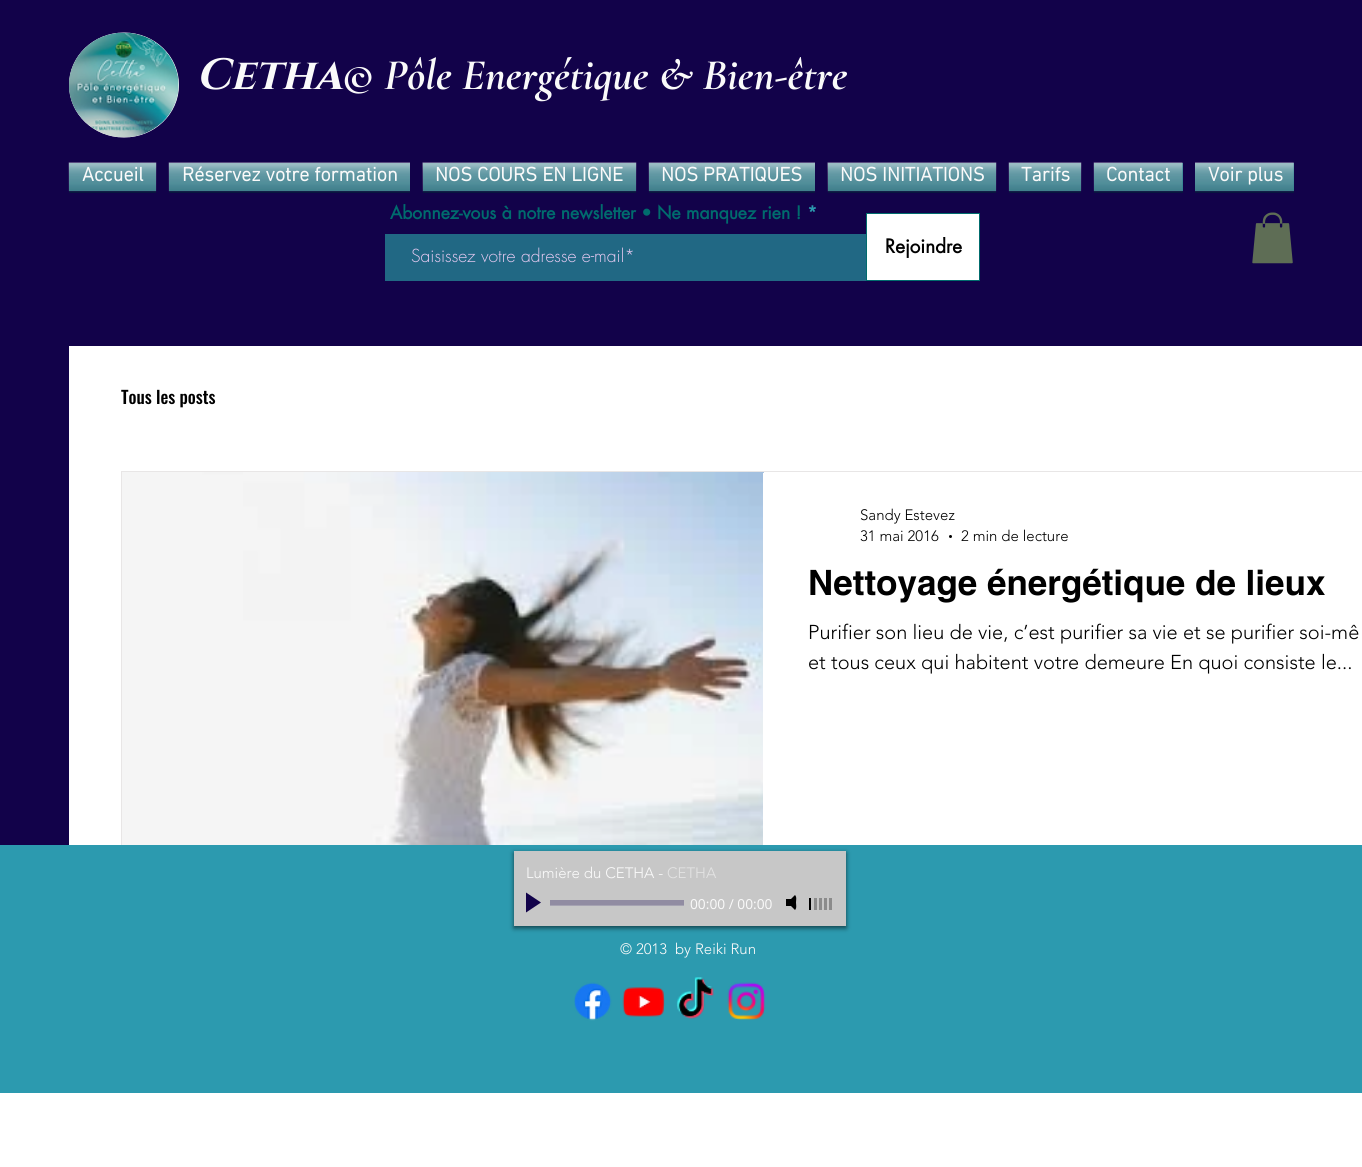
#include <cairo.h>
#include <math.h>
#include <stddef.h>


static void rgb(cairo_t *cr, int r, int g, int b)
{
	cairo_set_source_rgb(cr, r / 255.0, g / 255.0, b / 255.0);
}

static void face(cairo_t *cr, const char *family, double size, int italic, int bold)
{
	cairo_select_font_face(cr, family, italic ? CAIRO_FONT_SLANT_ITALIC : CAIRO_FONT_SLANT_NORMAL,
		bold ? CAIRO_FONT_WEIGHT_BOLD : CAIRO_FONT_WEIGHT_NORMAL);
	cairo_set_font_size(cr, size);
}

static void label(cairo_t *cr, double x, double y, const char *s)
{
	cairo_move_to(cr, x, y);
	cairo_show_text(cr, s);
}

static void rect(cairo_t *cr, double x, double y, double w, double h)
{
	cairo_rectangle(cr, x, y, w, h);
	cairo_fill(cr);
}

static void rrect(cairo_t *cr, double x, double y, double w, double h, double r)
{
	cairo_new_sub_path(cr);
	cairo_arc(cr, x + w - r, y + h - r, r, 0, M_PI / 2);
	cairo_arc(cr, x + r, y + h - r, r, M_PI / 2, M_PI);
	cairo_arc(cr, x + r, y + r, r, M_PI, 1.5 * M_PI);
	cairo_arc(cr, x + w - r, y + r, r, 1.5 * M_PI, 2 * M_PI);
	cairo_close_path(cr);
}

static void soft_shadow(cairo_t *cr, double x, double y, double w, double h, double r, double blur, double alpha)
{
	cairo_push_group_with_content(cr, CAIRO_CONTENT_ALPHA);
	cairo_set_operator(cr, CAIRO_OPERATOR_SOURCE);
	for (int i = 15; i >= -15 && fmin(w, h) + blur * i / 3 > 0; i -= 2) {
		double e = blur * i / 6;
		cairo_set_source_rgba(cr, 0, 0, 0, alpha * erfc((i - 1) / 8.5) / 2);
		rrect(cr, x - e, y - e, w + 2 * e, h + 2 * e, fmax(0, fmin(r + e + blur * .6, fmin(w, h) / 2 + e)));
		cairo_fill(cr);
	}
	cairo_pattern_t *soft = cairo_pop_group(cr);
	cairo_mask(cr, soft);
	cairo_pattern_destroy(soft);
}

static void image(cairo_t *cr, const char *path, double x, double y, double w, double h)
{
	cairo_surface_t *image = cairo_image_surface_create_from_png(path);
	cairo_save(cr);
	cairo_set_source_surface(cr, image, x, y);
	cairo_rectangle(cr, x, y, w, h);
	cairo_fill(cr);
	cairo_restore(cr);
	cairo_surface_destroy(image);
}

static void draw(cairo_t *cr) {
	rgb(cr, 255, 255, 255);
	cairo_paint(cr);
	rgb(cr, 18, 2, 74);
	rect(cr, 0, 0, 1362, 346);
	rgb(cr, 255, 255, 255);
	cairo_new_path(cr);
	cairo_move_to(cr, 124, 32.5);
	cairo_curve_to(cr, 154.5, 32.5, 179, 56, 179, 85);
	cairo_curve_to(cr, 179, 114, 154.5, 137.5, 124, 137.5);
	cairo_curve_to(cr, 93.5, 137.5, 69, 114, 69, 85);
	cairo_curve_to(cr, 69, 56, 93.5, 32.5, 124, 32.5);
	cairo_close_path(cr);
	cairo_fill(cr);
	image(cr, "image0.png", 69, 32, 110, 106);
	face(cr, "Cinzel", 43.75, 1, 1);
	rgb(cr, 250, 250, 250);
	label(cr, 196, 89, "Cetha");
	face(cr, "Cormorant Garamond", 43.75, 1, 1);
	label(cr, 342, 89, "© Pôle Energétique & Bien-être");
	rgb(cr, 8, 21, 64);
	rect(cr, 69, 191, 87, 2);
	rgb(cr, 36, 125, 143);
	rect(cr, 69, 163, 87, 28);
	image(cr, "image1.png", 68, 162, 89, 30);
	image(cr, "image2.png", 69, 163, 87, 28);
	face(cr, "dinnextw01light", 20, 0, 1);
	rgb(cr, 250, 250, 250);
	label(cr, 82, 181, "Accueil");
	rgb(cr, 8, 21, 64);
	rect(cr, 169, 191, 241, 2);
	rgb(cr, 36, 125, 143);
	rect(cr, 169, 163, 241, 28);
	image(cr, "image3.png", 168, 162, 242, 30);
	image(cr, "image4.png", 169, 163, 241, 28);
	rgb(cr, 250, 250, 250);
	label(cr, 182, 181, "Réservez votre formation");
	rgb(cr, 8, 21, 64);
	rect(cr, 423, 191, 213, 2);
	rgb(cr, 36, 125, 143);
	rect(cr, 423, 163, 213, 28);
	image(cr, "image5.png", 422, 162, 215, 30);
	image(cr, "image6.png", 422, 163, 214, 28);
	rgb(cr, 250, 250, 250);
	label(cr, 435, 181, "NOS COURS EN LIGNE");
	rgb(cr, 8, 21, 64);
	rect(cr, 649, 191, 166, 2);
	rgb(cr, 36, 125, 143);
	rect(cr, 649, 163, 166, 28);
	image(cr, "image7.png", 648, 162, 167, 30);
	image(cr, "image8.png", 649, 163, 166, 28);
	rgb(cr, 250, 250, 250);
	label(cr, 661, 181, "NOS PRATIQUES");
	rgb(cr, 8, 21, 64);
	rect(cr, 828, 191, 168, 2);
	rgb(cr, 36, 125, 143);
	rect(cr, 828, 163, 168, 28);
	image(cr, "image9.png", 827, 162, 170, 30);
	image(cr, "image10.png", 827, 163, 169, 28);
	rgb(cr, 250, 250, 250);
	label(cr, 840, 181, "NOS INITIATIONS");
	rgb(cr, 8, 21, 64);
	rect(cr, 1009, 191, 72, 2);
	rgb(cr, 36, 125, 143);
	rect(cr, 1009, 163, 72, 28);
	image(cr, "image11.png", 1008, 162, 74, 30);
	image(cr, "image12.png", 1009, 163, 72, 28);
	rgb(cr, 250, 250, 250);
	label(cr, 1021, 181, "Tarifs");
	rgb(cr, 8, 21, 64);
	cairo_new_path(cr);
	cairo_move_to(cr, 1094, 191);
	cairo_line_to(cr, 1094, 193);
	cairo_line_to(cr, 1183, 193);
	cairo_line_to(cr, 1183, 164);
	cairo_line_to(cr, 1182, 164);
	cairo_line_to(cr, 1182, 191);
	cairo_close_path(cr);
	cairo_fill(cr);
	rgb(cr, 36, 125, 143);
	rect(cr, 1094, 163, 89, 28);
	image(cr, "image13.png", 1093, 162, 90, 30);
	image(cr, "image14.png", 1094, 163, 89, 28);
	rgb(cr, 250, 250, 250);
	label(cr, 1106, 181, "Contact");
	rgb(cr, 8, 21, 64);
	cairo_new_path(cr);
	cairo_move_to(cr, 1195, 191);
	cairo_line_to(cr, 1195, 193);
	cairo_line_to(cr, 1294, 193);
	cairo_line_to(cr, 1294, 164);
	cairo_line_to(cr, 1294, 191);
	cairo_close_path(cr);
	cairo_fill(cr);
	rgb(cr, 36, 125, 143);
	rect(cr, 1195, 163, 99, 28);
	image(cr, "image15.png", 1195, 162, 99, 30);
	image(cr, "image16.png", 1195, 163, 99, 28);
	rgb(cr, 250, 250, 250);
	label(cr, 1208, 181, "Voir plus");
	face(cr, "futura", 17.5, 0, 1);
	rgb(cr, 0, 108, 109);
	label(cr, 390, 219, "Abonnez-vous à notre newsletter • Ne manquez rien !");
	rgb(cr, 44, 154, 175);
	label(cr, 807, 219, "*");
	rgb(cr, 33, 104, 132);
	rect(cr, 385, 234, 481, 47);
	face(cr, "futura Light", 17.5, 0, 0);
	rgb(cr, 231, 202, 242);
	label(cr, 411, 262, "Saisissez votre adresse e-mail*");
	rgb(cr, 255, 255, 255);
	cairo_rectangle(cr, 866.5, 213.5, 113, 67);
	cairo_fill_preserve(cr);
	rgb(cr, 0, 108, 109);
	cairo_set_line_width(cr, 1);
	cairo_stroke(cr);
	face(cr, "futura", 18.75, 0, 1);
	rgb(cr, 0, 0, 0);
	label(cr, 885, 253, "Rejoindre");
	image(cr, "image17.png", 1252, 212, 41, 52);
	rgb(cr, 18, 2, 74);
	rect(cr, 0, 346, 69, 499);
	face(cr, "Oswald Medium", 17.5, 0, 0);
	rgb(cr, 0, 0, 0);
	label(cr, 121, 404, "Tous les posts");
	cairo_rectangle(cr, 121.5, 471.5, 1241, 482);
	rgb(cr, 232, 230, 230);
	cairo_stroke(cr);
	image(cr, "image18.png", 122, 472, 642, 373);
	image(cr, "image19.png", 243, 472, 521, 373);
	rgb(cr, 255, 255, 255);
	rect(cr, 763, 473, 1, 372);
	face(cr, "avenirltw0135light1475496 Light", 15, 0, 0);
	rgb(cr, 0, 0, 0);
	label(cr, 860, 520, "Sandy Estevez");
	label(cr, 860, 541, "31 mai 2016");
	cairo_new_path(cr);
	cairo_arc(cr, 950.5, 536.5, 1.5, 0, 2 * M_PI);
	cairo_fill(cr);
	label(cr, 961, 541, "2 min de lecture");
	face(cr, "helvetica", 35, 0, 1);
	label(cr, 808, 595, "Nettoyage énergétique de lieux");
	face(cr, "avenirltw0135light1475496 Light", 20, 0, 0);
	label(cr, 808, 639, "Purifier son lieu de vie, c’est purifier sa vie et se purifier soi-mê");
	label(cr, 808, 669, "et tous ceux qui habitent votre demeure En quoi consiste le...");
	rgb(cr, 44, 154, 175);
	rect(cr, 0, 845, 1362, 248);
	rgb(cr, 0, 0, 0);
	soft_shadow(cr, 514, 853, 332, 75, 0, 2.5, 0.6);
	rgb(cr, 199, 199, 199);
	rect(cr, 514, 851, 332, 75);
	face(cr, "avenirltw0135light1475496 Light", 15, 0, 0);
	rgb(cr, 250, 250, 250);
	label(cr, 526, 878, "Lumière du CETHA -");
	rgb(cr, 227, 227, 227);
	label(cr, 667, 878, "CETHA");
	rgb(cr, 18, 2, 74);
	cairo_new_path(cr);
	cairo_move_to(cr, 526, 912.5);
	cairo_line_to(cr, 526, 892.5);
	cairo_line_to(cr, 541, 902.5);
	cairo_close_path(cr);
	cairo_fill(cr);
	rgb(cr, 145, 140, 162);
	rect(cr, 550, 900, 134, 5);
	rgb(cr, 166, 163, 178);
	rect(cr, 550, 905, 134, 1);
	face(cr, "Open Sans", 13.75, 0, 0);
	rgb(cr, 250, 250, 250);
	label(cr, 690, 909, "00:00 / 00:00");
	rgb(cr, 0, 0, 0);
	cairo_new_path(cr);
	cairo_move_to(cr, 787.5, 902.5);
	cairo_line_to(cr, 795, 895);
	cairo_curve_to(cr, 797, 897, 796, 900.5, 796, 902.5);
	cairo_curve_to(cr, 796, 904.5, 797, 908, 795, 910);
	cairo_close_path(cr);
	cairo_fill(cr);
	rect(cr, 786, 899, 5, 7);
	rect(cr, 809, 898, 2, 12);
	rgb(cr, 139, 139, 139);
	rect(cr, 814, 898, 3, 12);
	rect(cr, 819, 898, 3, 12);
	rect(cr, 824, 898, 3, 12);
	rect(cr, 829, 898, 3, 12);
	face(cr, "avenirltw0135light1475496 Light", 15, 0, 0);
	rgb(cr, 250, 250, 250);
	label(cr, 620, 954, "© 2013  by Reiki Run");
	image(cr, "image20.png", 574, 982, 38, 39);
	image(cr, "image21.png", 622, 987, 43, 30);
	image(cr, "image22.png", 676, 977, 38, 42);
	image(cr, "image23.png", 727, 982, 39, 38);
}

int main(void) {
	cairo_surface_t *surface = cairo_image_surface_create(CAIRO_FORMAT_RGB24, 1362, 1167);
	cairo_t *cr = cairo_create(surface);
	cairo_font_options_t *options = cairo_font_options_create();
	cairo_font_options_set_hint_metrics(options, CAIRO_HINT_METRICS_OFF);
	cairo_font_options_set_hint_style(options, CAIRO_HINT_STYLE_NONE);
	cairo_set_font_options(cr, options);
	cairo_set_miter_limit(cr, 4);
	draw(cr);
	cairo_surface_write_to_png(surface, "render.png");
	cairo_font_options_destroy(options);
	cairo_destroy(cr);
	cairo_surface_destroy(surface);
	return 0;
}
